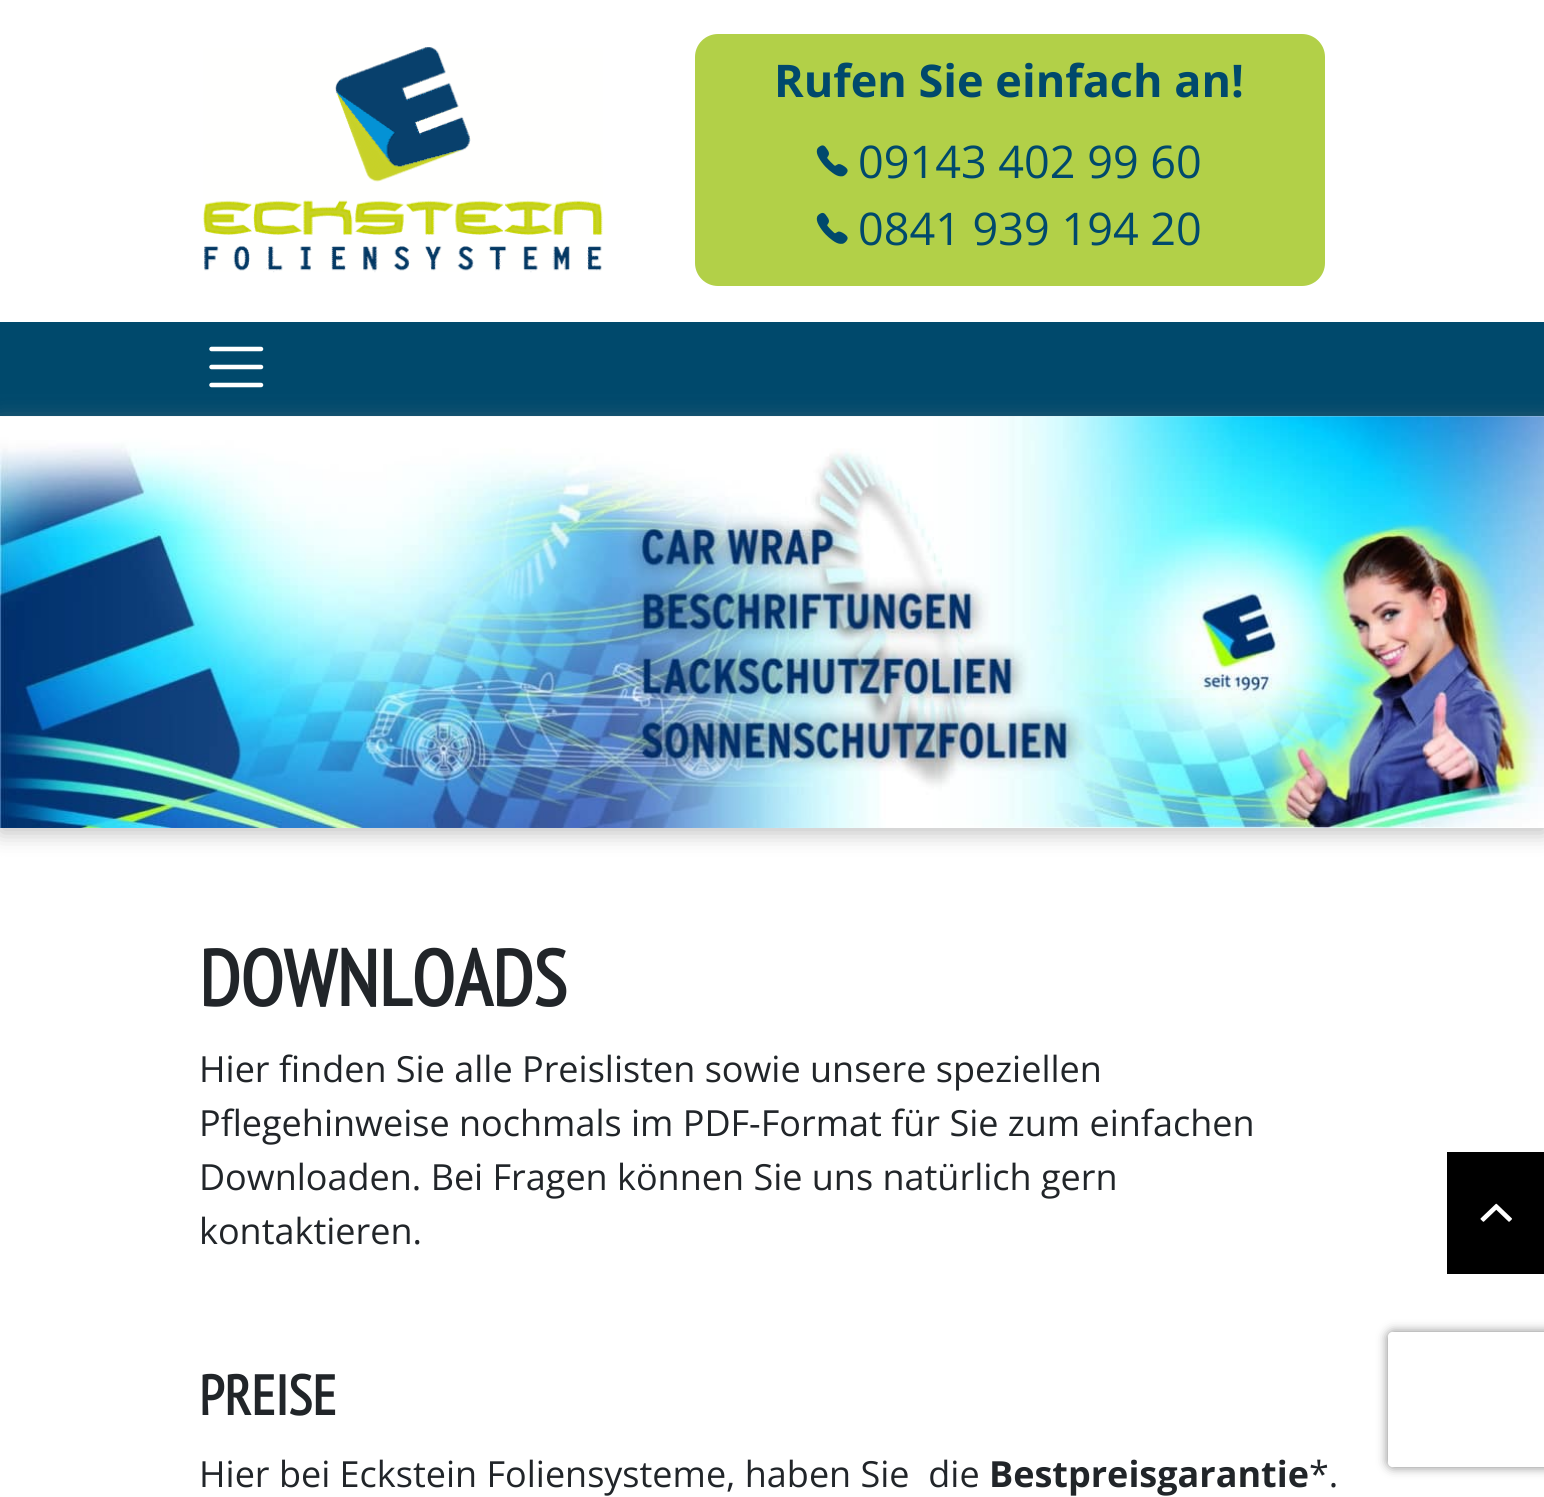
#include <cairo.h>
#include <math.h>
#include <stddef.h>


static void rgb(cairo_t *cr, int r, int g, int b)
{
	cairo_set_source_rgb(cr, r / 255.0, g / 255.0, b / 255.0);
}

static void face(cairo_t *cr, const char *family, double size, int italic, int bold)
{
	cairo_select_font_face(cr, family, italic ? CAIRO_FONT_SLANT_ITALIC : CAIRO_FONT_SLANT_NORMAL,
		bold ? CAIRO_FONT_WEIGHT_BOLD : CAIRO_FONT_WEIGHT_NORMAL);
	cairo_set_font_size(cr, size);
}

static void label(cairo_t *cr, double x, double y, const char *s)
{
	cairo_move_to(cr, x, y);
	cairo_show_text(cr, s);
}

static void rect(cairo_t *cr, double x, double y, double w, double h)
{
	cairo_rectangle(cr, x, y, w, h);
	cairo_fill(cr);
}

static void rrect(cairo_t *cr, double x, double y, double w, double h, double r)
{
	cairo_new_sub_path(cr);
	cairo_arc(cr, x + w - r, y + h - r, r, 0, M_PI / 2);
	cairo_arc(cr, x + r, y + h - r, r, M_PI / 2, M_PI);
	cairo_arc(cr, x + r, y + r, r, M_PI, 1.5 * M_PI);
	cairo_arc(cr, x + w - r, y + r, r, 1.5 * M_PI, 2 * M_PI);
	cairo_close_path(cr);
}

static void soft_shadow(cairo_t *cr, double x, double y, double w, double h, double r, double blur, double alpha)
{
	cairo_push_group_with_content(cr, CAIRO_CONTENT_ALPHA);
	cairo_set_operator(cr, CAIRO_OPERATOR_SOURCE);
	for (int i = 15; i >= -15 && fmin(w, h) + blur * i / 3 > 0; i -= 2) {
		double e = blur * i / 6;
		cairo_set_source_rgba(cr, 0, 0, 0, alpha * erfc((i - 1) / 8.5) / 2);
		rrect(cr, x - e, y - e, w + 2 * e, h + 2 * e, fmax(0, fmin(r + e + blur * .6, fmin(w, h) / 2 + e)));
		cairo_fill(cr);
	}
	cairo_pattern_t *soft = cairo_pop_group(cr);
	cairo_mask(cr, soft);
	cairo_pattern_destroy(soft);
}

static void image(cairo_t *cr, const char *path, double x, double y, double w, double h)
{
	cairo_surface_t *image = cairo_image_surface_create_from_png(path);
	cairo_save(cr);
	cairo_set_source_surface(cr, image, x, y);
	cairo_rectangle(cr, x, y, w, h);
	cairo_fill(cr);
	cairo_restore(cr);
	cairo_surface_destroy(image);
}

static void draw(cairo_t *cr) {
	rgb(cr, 255, 255, 255);
	cairo_paint(cr);
	image(cr, "image0.png", 203, 47, 400, 226);
	rgb(cr, 178, 208, 72);
	rrect(cr, 695, 34, 630, 252, 23);
	cairo_fill(cr);
	face(cr, "Open Sans", 45, 0, 1);
	rgb(cr, 0, 73, 108);
	label(cr, 774, 97, "Rufen Sie einfach an!");
	image(cr, "image1.png", 816, 145, 32, 32);
	face(cr, "Open Sans", 45, 0, 0);
	label(cr, 858, 178, "09143 402 99 60");
	image(cr, "image2.png", 816, 212, 32, 32);
	label(cr, 858, 245, "0841 939 194 20");
	rect(cr, 0, 322, 1544, 94);
	cairo_new_path(cr);
	cairo_move_to(cr, 211.5, 349);
	cairo_line_to(cr, 261, 349);
	cairo_move_to(cr, 211.5, 367);
	cairo_line_to(cr, 261, 367);
	cairo_move_to(cr, 211.5, 385);
	cairo_line_to(cr, 261, 385);
	rgb(cr, 255, 255, 255);
	cairo_set_line_width(cr, 4.5);
	cairo_set_line_cap(cr, CAIRO_LINE_CAP_ROUND);
	cairo_stroke(cr);
	rgb(cr, 128, 128, 128);
	soft_shadow(cr, 0, 421, 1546, 412, 0, 11, 0.5);
	image(cr, "image3.png", 0, 416, 1544, 412);
	face(cr, "PT Sans Narrow", 78.75, 0, 1);
	rgb(cr, 33, 37, 41);
	label(cr, 199, 1006, "DOWNLOADS");
	face(cr, "Open Sans", 36, 0, 0);
	label(cr, 199, 1082, "Hier finden Sie alle Preislisten sowie unsere speziellen");
	label(cr, 199, 1136, "Pflegehinweise nochmals im PDF-Format für Sie zum einfachen");
	label(cr, 199, 1190, "Downloaden. Bei Fragen können Sie uns natürlich gern");
	label(cr, 199, 1244, "kontaktieren.");
	face(cr, "PT Sans Narrow", 56, 0, 1);
	label(cr, 199, 1415, "PREISE");
	face(cr, "Open Sans", 36, 0, 0);
	label(cr, 199, 1487, "Hier bei Eckstein Foliensysteme, haben Sie  die");
	face(cr, "Open Sans", 36, 0, 1);
	label(cr, 989, 1487, "Bestpreisgarantie");
	face(cr, "Open Sans", 36, 0, 0);
	label(cr, 1309, 1487, "*.");
	rgb(cr, 0, 0, 0);
	rect(cr, 1447, 1152, 97, 122);
	image(cr, "image4.png", 1480, 1203, 32, 19);
	cairo_save(cr);
	cairo_set_fill_rule(cr, CAIRO_FILL_RULE_EVEN_ODD);
	cairo_new_path(cr);
	cairo_move_to(cr, 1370, 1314);
	cairo_line_to(cr, 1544, 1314);
	cairo_line_to(cr, 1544, 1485);
	cairo_line_to(cr, 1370, 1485);
	cairo_close_path(cr);
	cairo_move_to(cr, 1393, 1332);
	cairo_line_to(cr, 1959, 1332);
	cairo_curve_to(cr, 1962, 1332, 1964, 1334, 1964, 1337);
	cairo_line_to(cr, 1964, 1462);
	cairo_curve_to(cr, 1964, 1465, 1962, 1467, 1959, 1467);
	cairo_line_to(cr, 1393, 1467);
	cairo_curve_to(cr, 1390, 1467, 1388, 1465, 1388, 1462);
	cairo_line_to(cr, 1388, 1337);
	cairo_curve_to(cr, 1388, 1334, 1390, 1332, 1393, 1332);
	cairo_close_path(cr);
	cairo_clip(cr);
	rgb(cr, 128, 128, 128);
	soft_shadow(cr, 1388, 1332, 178, 135, 5, 5.5, 1);
	cairo_restore(cr);
}

int main(void) {
	cairo_surface_t *surface = cairo_image_surface_create(CAIRO_FORMAT_RGB24, 1544, 1497);
	cairo_t *cr = cairo_create(surface);
	cairo_font_options_t *options = cairo_font_options_create();
	cairo_font_options_set_hint_metrics(options, CAIRO_HINT_METRICS_OFF);
	cairo_font_options_set_hint_style(options, CAIRO_HINT_STYLE_NONE);
	cairo_set_font_options(cr, options);
	cairo_set_miter_limit(cr, 4);
	draw(cr);
	cairo_surface_write_to_png(surface, "render.png");
	cairo_font_options_destroy(options);
	cairo_destroy(cr);
	cairo_surface_destroy(surface);
	return 0;
}
